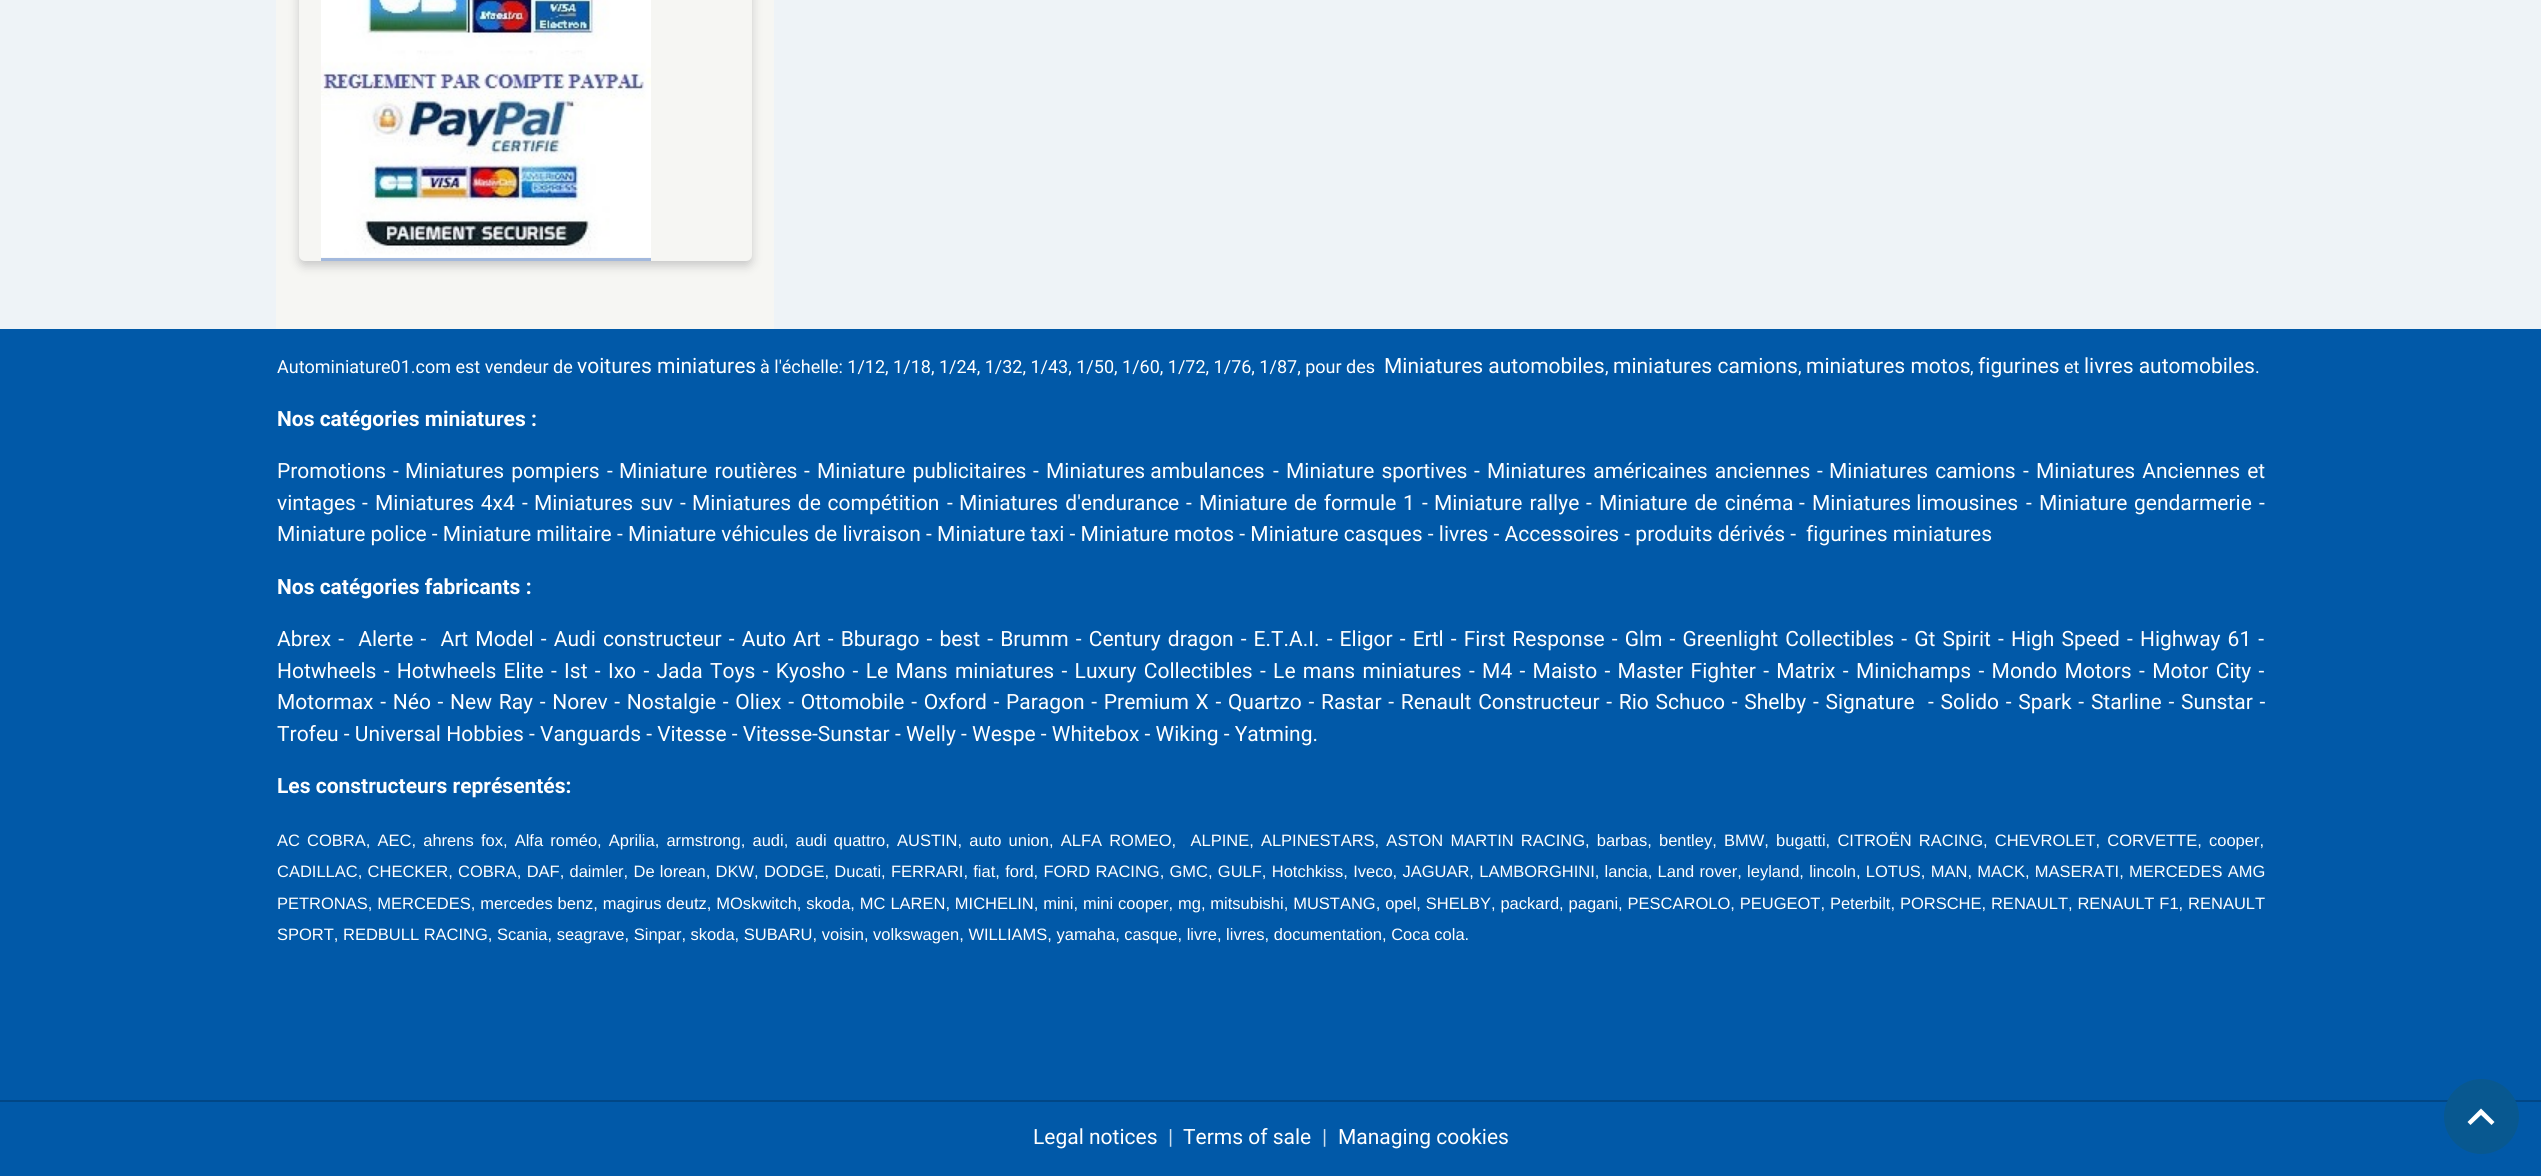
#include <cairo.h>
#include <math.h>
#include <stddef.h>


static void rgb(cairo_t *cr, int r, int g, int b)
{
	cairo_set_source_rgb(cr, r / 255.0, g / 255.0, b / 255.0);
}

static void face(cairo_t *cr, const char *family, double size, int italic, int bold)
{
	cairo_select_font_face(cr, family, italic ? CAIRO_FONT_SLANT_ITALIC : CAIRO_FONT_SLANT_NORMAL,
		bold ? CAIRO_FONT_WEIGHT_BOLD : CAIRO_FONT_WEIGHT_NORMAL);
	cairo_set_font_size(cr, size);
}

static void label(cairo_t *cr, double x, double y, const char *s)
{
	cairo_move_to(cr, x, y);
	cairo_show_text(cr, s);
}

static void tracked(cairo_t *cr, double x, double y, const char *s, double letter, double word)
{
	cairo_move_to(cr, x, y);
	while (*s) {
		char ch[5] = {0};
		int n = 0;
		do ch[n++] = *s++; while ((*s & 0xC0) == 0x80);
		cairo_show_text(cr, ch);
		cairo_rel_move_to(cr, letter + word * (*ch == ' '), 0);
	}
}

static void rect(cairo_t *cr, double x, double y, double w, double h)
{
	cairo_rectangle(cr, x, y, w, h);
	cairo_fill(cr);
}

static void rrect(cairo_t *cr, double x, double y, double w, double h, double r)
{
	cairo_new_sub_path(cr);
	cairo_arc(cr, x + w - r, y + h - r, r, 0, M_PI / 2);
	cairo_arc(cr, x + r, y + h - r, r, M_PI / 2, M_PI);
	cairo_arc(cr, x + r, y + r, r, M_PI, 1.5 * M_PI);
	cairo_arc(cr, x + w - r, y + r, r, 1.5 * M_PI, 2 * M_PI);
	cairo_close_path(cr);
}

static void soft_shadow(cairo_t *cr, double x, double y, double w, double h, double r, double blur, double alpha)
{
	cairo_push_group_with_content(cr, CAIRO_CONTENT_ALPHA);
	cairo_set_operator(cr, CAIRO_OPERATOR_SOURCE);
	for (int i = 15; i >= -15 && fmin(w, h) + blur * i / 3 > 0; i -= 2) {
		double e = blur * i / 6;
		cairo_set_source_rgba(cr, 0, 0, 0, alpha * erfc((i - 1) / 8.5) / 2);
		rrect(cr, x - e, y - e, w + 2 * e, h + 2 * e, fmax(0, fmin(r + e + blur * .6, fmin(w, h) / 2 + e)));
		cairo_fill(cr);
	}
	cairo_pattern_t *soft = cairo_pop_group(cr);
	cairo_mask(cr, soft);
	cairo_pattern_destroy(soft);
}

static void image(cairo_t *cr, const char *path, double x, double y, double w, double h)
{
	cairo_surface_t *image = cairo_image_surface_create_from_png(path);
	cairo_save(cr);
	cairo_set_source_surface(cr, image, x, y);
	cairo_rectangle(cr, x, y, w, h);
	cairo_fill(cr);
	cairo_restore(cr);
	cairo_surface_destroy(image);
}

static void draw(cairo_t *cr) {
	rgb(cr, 238, 243, 247);
	cairo_paint(cr);
	rgb(cr, 246, 246, 243);
	rect(cr, 276, 0, 498, 329);
	rgb(cr, 20, 20, 28);
	soft_shadow(cr, 299, -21, 453, 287, 6, 5, 0.2);
	rgb(cr, 246, 246, 243);
	rrect(cr, 299, -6, 453, 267, 6);
	cairo_fill(cr);
	rgb(cr, 163, 185, 221);
	rect(cr, 321, 258, 330, 3);
	image(cr, "image0.png", 321, 0, 330, 258);
	rgb(cr, 1, 89, 168);
	rect(cr, 0, 329, 2541, 847);
	face(cr, "Roboto", 18, 0, 0);
	rgb(cr, 255, 255, 255);
	label(cr, 277, 373, "Autominiature01.com est vendeur de");
	face(cr, "Roboto", 21, 0, 0);
	label(cr, 577, 373, "voitures miniatures");
	face(cr, "Roboto", 18, 0, 0);
	label(cr, 760, 373, "à l'échelle: 1/12, 1/18, 1/24, 1/32, 1/43, 1/50, 1/60, 1/72, 1/76, 1/87, pour des");
	face(cr, "Roboto", 21, 0, 0);
	label(cr, 1384, 373, "Miniatures automobiles");
	face(cr, "Roboto", 18, 0, 0);
	label(cr, 1605, 373, ",");
	face(cr, "Roboto", 21, 0, 0);
	label(cr, 1613, 373, "miniatures camions");
	face(cr, "Roboto", 18, 0, 0);
	label(cr, 1798, 373, ",");
	face(cr, "Roboto", 21, 0, 0);
	label(cr, 1806, 373, "miniatures motos");
	face(cr, "Roboto", 18, 0, 0);
	label(cr, 1970, 373, ",");
	face(cr, "Roboto", 21, 0, 0);
	label(cr, 1978, 373, "figurines");
	face(cr, "Roboto", 18, 0, 0);
	label(cr, 2064, 373, "et");
	face(cr, "Roboto", 21, 0, 0);
	label(cr, 2084, 373, "livres automobiles");
	face(cr, "Roboto", 18, 0, 0);
	label(cr, 2255, 373, ".");
	face(cr, "Roboto", 21, 0, 1);
	label(cr, 277, 426, "Nos catégories miniatures :");
	face(cr, "Roboto", 21, 0, 0);
	label(cr, 277, 478, "Promotions");
	label(cr, 393, 478, "-");
	tracked(cr, 405, 478, "Miniatures pompiers", 0, 2);
	label(cr, 607, 478, "-");
	tracked(cr, 619, 478, "Miniature routières", 0, 2);
	label(cr, 804, 478, "-");
	tracked(cr, 817, 478, "Miniature publicitaires", 0, 2);
	label(cr, 1033, 478, "-");
	label(cr, 1046, 478, "Miniatures ambulances");
	label(cr, 1273, 478, "-");
	tracked(cr, 1286, 478, "Miniature sportives", 0, 2);
	label(cr, 1474, 478, "-");
	tracked(cr, 1487, 478, "Miniatures américaines anciennes", 0, 2);
	label(cr, 1817, 478, "-");
	tracked(cr, 1829, 478, "Miniatures camions", 0, 2);
	label(cr, 2023, 478, "-");
	tracked(cr, 2036, 478, "Miniatures Anciennes et", 0, 2);
	label(cr, 277, 510, "vintages");
	label(cr, 362, 510, "-");
	tracked(cr, 375, 510, "Miniatures 4x4", 0, 1.5);
	label(cr, 522, 510, "-");
	tracked(cr, 534, 510, "Miniatures suv", 0, 2);
	label(cr, 680, 510, "-");
	tracked(cr, 692, 510, "Miniatures de compétition", 0, 1.5);
	label(cr, 947, 510, "-");
	tracked(cr, 959, 510, "Miniatures d'endurance", 0, 2);
	label(cr, 1186, 510, "-");
	tracked(cr, 1199, 510, "Miniature de formule 1", 0, 1.5);
	label(cr, 1422, 510, "-");
	tracked(cr, 1434, 510, "Miniature rallye", 0, 2);
	label(cr, 1586, 510, "-");
	tracked(cr, 1599, 510, "Miniature de cinéma", 0, 2);
	label(cr, 1799, 510, "-");
	label(cr, 1812, 510, "Miniatures limousines");
	label(cr, 2026, 510, "-");
	tracked(cr, 2039, 510, "Miniature gendarmerie", 0, 1.5);
	label(cr, 2259, 510, "-");
	label(cr, 277, 541, "Miniature police - Miniature militaire - Miniature véhicules de livraison - Miniature taxi - Miniature motos - Miniature casques - livres - Accessoires - produits dérivés -");
	label(cr, 1806, 541, "figurines miniatures");
	face(cr, "Roboto", 21, 0, 1);
	label(cr, 277, 594, "Nos catégories fabricants :");
	face(cr, "Roboto", 21, 0, 0);
	tracked(cr, 277, 646, "Abrex -  Alerte -  Art Model - Audi constructeur - Auto Art - Bburago - best - Brumm - Century dragon - E.T.A.I. - Eligor - Ertl - First Response - Glm - Greenlight Collectibles - Gt Spirit - High Speed - Highway 61 -", 0, 1.9);
	tracked(cr, 277, 678, "Hotwheels - Hotwheels Elite - Ist - Ixo - Jada Toys - Kyosho - Le Mans miniatures - Luxury Collectibles - Le mans miniatures - M4 - Maisto - Master Fighter - Matrix - Minichamps - Mondo Motors - Motor City -", 0, 2.1);
	tracked(cr, 277, 709, "Motormax - Néo - New Ray - Norev - Nostalgie - Oliex - Ottomobile - Oxford - Paragon - Premium X - Quartzo - Rastar - Renault Constructeur - Rio Schuco - Shelby - Signature  - Solido - Spark - Starline - Sunstar -", 0, 1.5);
	label(cr, 277, 741, "Trofeu - Universal Hobbies - Vanguards - Vitesse - Vitesse-Sunstar - Welly - Wespe - Whitebox - Wiking - Yatming.");
	face(cr, "Roboto", 21, 0, 1);
	label(cr, 277, 793, "Les constructeurs représentés:");
	face(cr, "Liberation Sans", 16.5, 0, 0);
	tracked(cr, 277, 846, "AC COBRA, AEC, ahrens fox, Alfa roméo, Aprilia, armstrong, audi, audi quattro, AUSTIN, auto union, ALFA ROMEO,  ALPINE, ALPINESTARS, ASTON MARTIN RACING, barbas, bentley, BMW, bugatti, CITROËN RACING, CHEVROLET, CORVETTE, cooper,", 0, 2.6);
	tracked(cr, 277, 877, "CADILLAC, CHECKER, COBRA, DAF, daimler, De lorean, DKW, DODGE, Ducati, FERRARI, fiat, ford, FORD RACING, GMC, GULF, Hotchkiss, Iveco, JAGUAR, LAMBORGHINI, lancia, Land rover, leyland, lincoln, LOTUS, MAN, MACK, MASERATI, MERCEDES AMG", 0, 0.7);
	tracked(cr, 277, 909, "PETRONAS, MERCEDES, mercedes benz, magirus deutz, MOskwitch, skoda, MC LAREN, MICHELIN, mini, mini cooper, mg, mitsubishi, MUSTANG, opel, SHELBY, packard, pagani, PESCAROLO, PEUGEOT, Peterbilt, PORSCHE, RENAULT, RENAULT F1, RENAULT", 0, 0.3);
	label(cr, 277, 940, "SPORT, REDBULL RACING, Scania, seagrave, Sinpar, skoda, SUBARU, voisin, volkswagen, WILLIAMS, yamaha, casque, livre, livres, documentation, Coca cola.");
	rgb(cr, 1, 71, 134);
	rect(cr, 0, 1100, 2541, 2);
	face(cr, "Roboto", 21, 0, 0);
	rgb(cr, 255, 255, 255);
	label(cr, 1033, 1144, "Legal notices");
	rgb(cr, 204, 222, 238);
	label(cr, 1168, 1144, "|");
	rgb(cr, 255, 255, 255);
	label(cr, 1183, 1144, "Terms of sale");
	rgb(cr, 204, 222, 238);
	label(cr, 1322, 1144, "|");
	rgb(cr, 255, 255, 255);
	label(cr, 1338, 1144, "Managing cookies");
	rgb(cr, 8, 88, 144);
	cairo_new_path(cr);
	cairo_arc(cr, 2481.5, 1116.5, 37.5, 0, 2 * M_PI);
	cairo_fill(cr);
	rgb(cr, 255, 255, 255);
	cairo_new_path(cr);
	cairo_move_to(cr, 2481, 1108.5);
	cairo_line_to(cr, 2494.5, 1122);
	cairo_line_to(cr, 2491.5, 1125);
	cairo_line_to(cr, 2481, 1115);
	cairo_line_to(cr, 2470.5, 1125);
	cairo_line_to(cr, 2467.5, 1122);
	cairo_close_path(cr);
	cairo_fill(cr);
}

int main(void) {
	cairo_surface_t *surface = cairo_image_surface_create(CAIRO_FORMAT_RGB24, 2541, 1176);
	cairo_t *cr = cairo_create(surface);
	cairo_font_options_t *options = cairo_font_options_create();
	cairo_font_options_set_hint_metrics(options, CAIRO_HINT_METRICS_OFF);
	cairo_font_options_set_hint_style(options, CAIRO_HINT_STYLE_NONE);
	cairo_set_font_options(cr, options);
	cairo_set_miter_limit(cr, 4);
	draw(cr);
	cairo_surface_write_to_png(surface, "render.png");
	cairo_font_options_destroy(options);
	cairo_destroy(cr);
	cairo_surface_destroy(surface);
	return 0;
}
